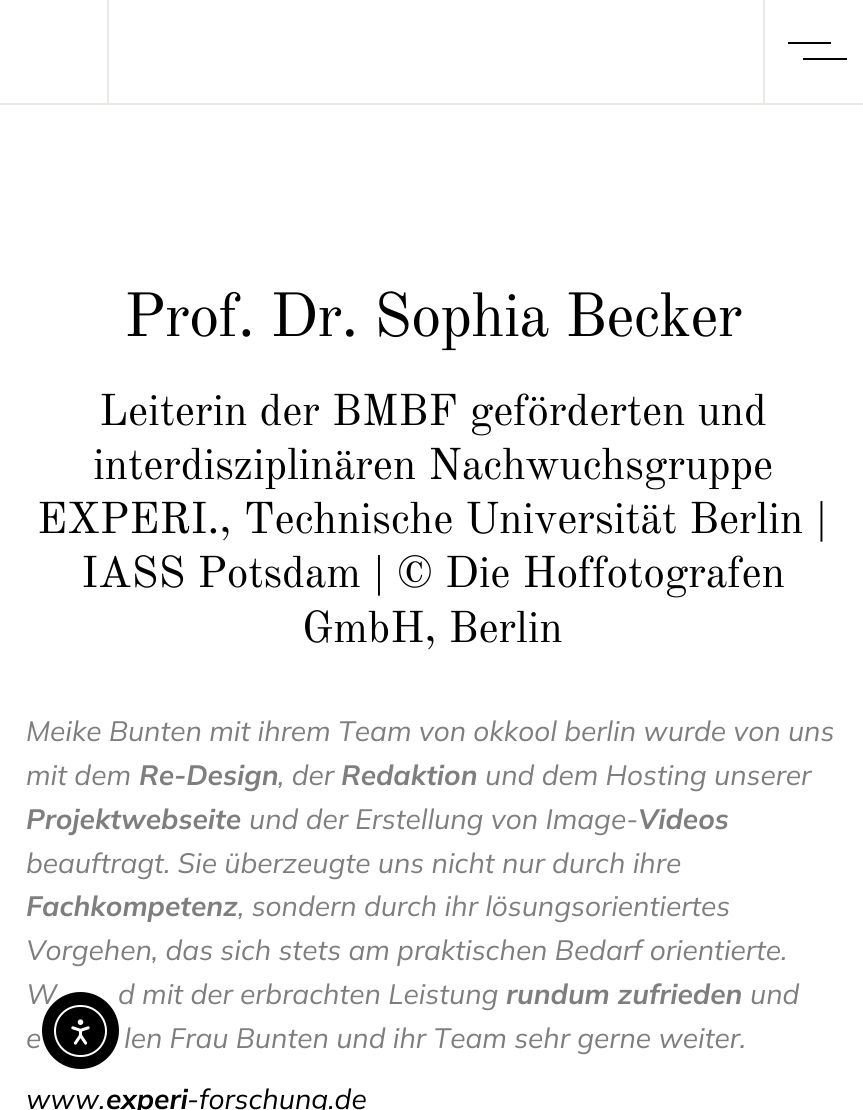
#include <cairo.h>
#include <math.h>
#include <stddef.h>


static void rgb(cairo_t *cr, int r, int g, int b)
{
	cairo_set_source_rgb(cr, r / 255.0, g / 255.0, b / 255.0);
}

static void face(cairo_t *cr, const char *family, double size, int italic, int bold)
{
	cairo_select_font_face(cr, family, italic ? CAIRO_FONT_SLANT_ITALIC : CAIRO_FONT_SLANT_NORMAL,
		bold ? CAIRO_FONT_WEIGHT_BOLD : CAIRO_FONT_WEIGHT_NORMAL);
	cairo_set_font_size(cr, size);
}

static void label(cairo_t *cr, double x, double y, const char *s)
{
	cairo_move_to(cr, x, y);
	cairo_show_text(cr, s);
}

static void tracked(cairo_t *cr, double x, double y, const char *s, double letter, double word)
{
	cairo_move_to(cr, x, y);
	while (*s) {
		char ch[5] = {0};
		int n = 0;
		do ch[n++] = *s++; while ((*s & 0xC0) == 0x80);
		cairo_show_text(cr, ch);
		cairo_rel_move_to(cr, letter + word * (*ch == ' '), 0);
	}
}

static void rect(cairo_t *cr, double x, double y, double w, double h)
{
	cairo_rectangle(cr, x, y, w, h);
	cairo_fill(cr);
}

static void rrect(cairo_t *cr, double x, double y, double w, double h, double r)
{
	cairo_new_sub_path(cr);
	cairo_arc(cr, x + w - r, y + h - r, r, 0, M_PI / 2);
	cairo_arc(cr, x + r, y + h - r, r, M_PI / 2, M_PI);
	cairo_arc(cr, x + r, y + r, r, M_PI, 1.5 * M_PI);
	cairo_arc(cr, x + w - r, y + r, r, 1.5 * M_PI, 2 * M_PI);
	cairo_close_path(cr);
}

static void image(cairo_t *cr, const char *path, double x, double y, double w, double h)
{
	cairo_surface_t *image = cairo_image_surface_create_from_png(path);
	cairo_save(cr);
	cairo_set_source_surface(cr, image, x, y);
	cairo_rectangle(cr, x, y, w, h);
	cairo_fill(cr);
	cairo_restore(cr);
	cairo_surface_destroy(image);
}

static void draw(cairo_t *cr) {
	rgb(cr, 255, 255, 255);
	cairo_paint(cr);
	rgb(cr, 236, 232, 229);
	rect(cr, 0, 103, 863, 2);
	rect(cr, 107, 0, 2, 103);
	rect(cr, 763, 0, 2, 103);
	rgb(cr, 0, 0, 0);
	rect(cr, 788, 42, 43, 2);
	rect(cr, 803, 58, 44, 2);
	face(cr, "Old Standard TT", 61.25, 0, 0);
	tracked(cr, 124, 336, "Prof. Dr. Sophia Becker", -0.9, 0);
	face(cr, "Old Standard TT", 43.75, 0, 0);
	tracked(cr, 99, 425, "Leiterin der BMBF geförderten und", -0.2, 0);
	tracked(cr, 93, 479, "interdisziplinären Nachwuchsgruppe", -0.2, 0);
	tracked(cr, 37, 533, "EXPERI., Technische Universität Berlin |", -0.2, 0);
	tracked(cr, 81, 587, "IASS Potsdam | © Die Hoffotografen", -0.2, 0);
	tracked(cr, 302, 642, "GmbH, Berlin", -0.2, 0);
	face(cr, "Mulish", 28, 1, 0);
	rgb(cr, 126, 126, 126);
	label(cr, 26, 741, "Meike Bunten mit ihrem Team von okkool berlin wurde von uns");
	label(cr, 26, 785, "mit dem");
	face(cr, "Mulish", 28, 1, 1);
	label(cr, 139, 785, "Re-Design");
	face(cr, "Mulish", 28, 1, 0);
	label(cr, 278, 785, ", der");
	face(cr, "Mulish", 28, 1, 1);
	label(cr, 341, 785, "Redaktion");
	face(cr, "Mulish", 28, 1, 0);
	label(cr, 485, 785, "und dem Hosting unserer");
	face(cr, "Mulish", 28, 1, 1);
	label(cr, 26, 829, "Projektwebseite");
	face(cr, "Mulish", 28, 1, 0);
	label(cr, 249, 829, "und der Erstellung von Image-");
	face(cr, "Mulish", 28, 1, 1);
	label(cr, 638, 829, "Videos");
	face(cr, "Mulish", 28, 1, 0);
	label(cr, 26, 873, "beauftragt. Sie überzeugte uns nicht nur durch ihre");
	face(cr, "Mulish", 28, 1, 1);
	label(cr, 26, 916, "Fachkompetenz");
	face(cr, "Mulish", 28, 1, 0);
	label(cr, 238, 916, ", sondern durch ihr lösungsorientiertes");
	label(cr, 26, 960, "Vorgehen, das sich stets am praktischen Bedarf orientierte.");
	label(cr, 26, 1004, "W");
	label(cr, 118, 1004, "d mit der erbrachten Leistung");
	face(cr, "Mulish", 28, 1, 1);
	label(cr, 506, 1004, "rundum zufrieden");
	face(cr, "Mulish", 28, 1, 0);
	label(cr, 750, 1004, "und");
	label(cr, 26, 1048, "e");
	label(cr, 124, 1048, "len Frau Bunten und ihr Team sehr gerne weiter.");
	rgb(cr, 0, 0, 0);
	label(cr, 26, 1109, "www.");
	face(cr, "Mulish", 28, 1, 1);
	label(cr, 106, 1109, "experi");
	face(cr, "Mulish", 28, 1, 0);
	label(cr, 187, 1109, "-forschung.de");
	cairo_new_path(cr);
	cairo_arc(cr, 80.5, 1030.5, 38.5, 0, 2 * M_PI);
	cairo_fill(cr);
	rrect(cr, 55, 1006, 51, 50, 25);
	rgb(cr, 255, 255, 255);
	cairo_stroke(cr);
	image(cr, "image0.png", 71, 1019, 19, 26);
}

int main(void) {
	cairo_surface_t *surface = cairo_image_surface_create(CAIRO_FORMAT_RGB24, 863, 1110);
	cairo_t *cr = cairo_create(surface);
	cairo_font_options_t *options = cairo_font_options_create();
	cairo_font_options_set_hint_metrics(options, CAIRO_HINT_METRICS_OFF);
	cairo_font_options_set_hint_style(options, CAIRO_HINT_STYLE_NONE);
	cairo_set_font_options(cr, options);
	cairo_set_miter_limit(cr, 4);
	draw(cr);
	cairo_surface_write_to_png(surface, "render.png");
	cairo_font_options_destroy(options);
	cairo_destroy(cr);
	cairo_surface_destroy(surface);
	return 0;
}
